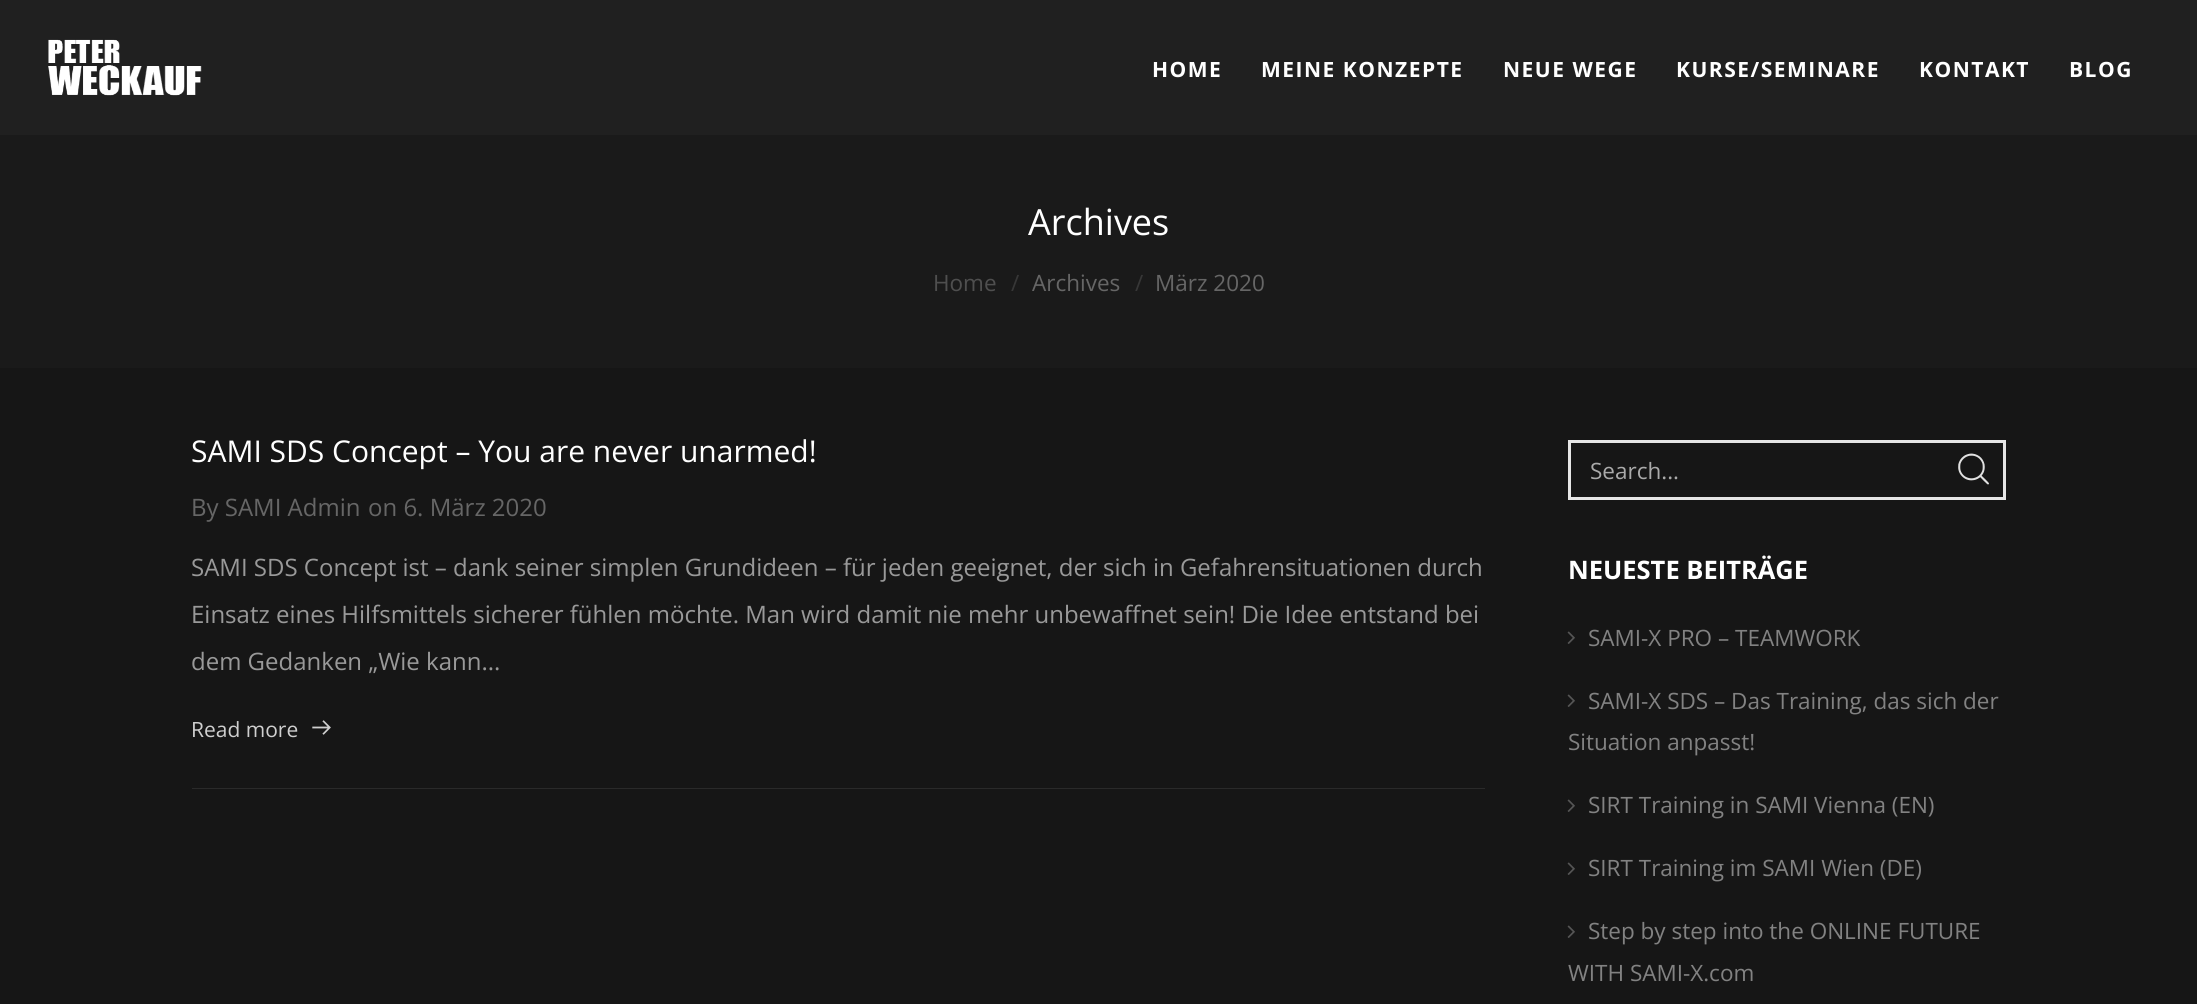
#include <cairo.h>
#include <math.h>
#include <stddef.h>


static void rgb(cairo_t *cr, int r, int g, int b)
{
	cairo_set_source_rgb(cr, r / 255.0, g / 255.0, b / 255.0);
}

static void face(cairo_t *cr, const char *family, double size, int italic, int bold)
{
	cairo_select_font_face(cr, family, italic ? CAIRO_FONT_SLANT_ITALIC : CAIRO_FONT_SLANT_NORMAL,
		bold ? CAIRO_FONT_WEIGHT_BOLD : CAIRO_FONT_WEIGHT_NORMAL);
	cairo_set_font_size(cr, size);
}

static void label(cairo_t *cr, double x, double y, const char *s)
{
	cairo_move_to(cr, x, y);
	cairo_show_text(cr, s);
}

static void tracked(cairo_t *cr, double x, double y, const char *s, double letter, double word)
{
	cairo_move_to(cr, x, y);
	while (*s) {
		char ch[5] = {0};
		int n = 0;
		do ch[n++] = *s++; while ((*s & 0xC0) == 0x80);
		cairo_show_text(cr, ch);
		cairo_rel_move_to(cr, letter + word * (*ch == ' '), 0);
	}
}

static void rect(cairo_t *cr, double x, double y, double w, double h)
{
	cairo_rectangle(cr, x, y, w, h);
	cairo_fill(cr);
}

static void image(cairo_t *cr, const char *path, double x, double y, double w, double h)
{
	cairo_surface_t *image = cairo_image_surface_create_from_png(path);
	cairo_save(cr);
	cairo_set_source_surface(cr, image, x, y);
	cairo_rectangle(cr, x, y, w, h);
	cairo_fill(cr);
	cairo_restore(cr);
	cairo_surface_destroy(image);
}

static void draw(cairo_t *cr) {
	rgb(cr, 26, 26, 26);
	cairo_paint(cr);
	rgb(cr, 32, 32, 32);
	rect(cr, 0, 0, 2197, 135);
	image(cr, "image0.png", 48, 39, 154, 57);
	face(cr, "Open Sans", 21, 0, 1);
	rgb(cr, 255, 255, 255);
	tracked(cr, 1152, 77, "HOME", 1.5, 0);
	tracked(cr, 1261, 77, "MEINE KONZEPTE", 1.5, 0);
	tracked(cr, 1503, 77, "NEUE WEGE", 1.5, 0);
	tracked(cr, 1676, 77, "KURSE/SEMINARE", 1.5, 0);
	tracked(cr, 1919, 77, "KONTAKT", 1.5, 0);
	tracked(cr, 2069, 77, "BLOG", 1.5, 0);
	face(cr, "Open Sans", 36, 0, 0);
	label(cr, 1028, 235, "Archives");
	face(cr, "Open Sans", 22.5, 0, 0);
	rgb(cr, 79, 79, 79);
	label(cr, 933, 291, "Home");
	rgb(cr, 55, 55, 55);
	label(cr, 1011, 291, "/");
	rgb(cr, 102, 102, 102);
	label(cr, 1032, 291, "Archives");
	rgb(cr, 55, 55, 55);
	label(cr, 1135, 291, "/");
	rgb(cr, 102, 102, 102);
	label(cr, 1155, 291, "März 2020");
	rgb(cr, 22, 22, 22);
	rect(cr, 0, 368, 2197, 636);
	rgb(cr, 42, 42, 42);
	rect(cr, 192, 788, 1293, 1);
	face(cr, "Open Sans", 30, 0, 0);
	rgb(cr, 255, 255, 255);
	label(cr, 191, 462, "SAMI SDS Concept – You are never unarmed!");
	face(cr, "Open Sans", 24, 0, 0);
	rgb(cr, 102, 102, 102);
	label(cr, 191, 516, "By SAMI Admin");
	label(cr, 368, 516, "on 6. März 2020");
	rgb(cr, 153, 153, 153);
	label(cr, 191, 576, "SAMI SDS Concept ist – dank seiner simplen Grundideen – für jeden geeignet, der sich in Gefahrensituationen durch");
	label(cr, 191, 623, "Einsatz eines Hilfsmittels sicherer fühlen möchte. Man wird damit nie mehr unbewaffnet sein! Die Idee entstand bei");
	label(cr, 191, 670, "dem Gedanken „Wie kann...");
	face(cr, "Open Sans", 21, 0, 0);
	rgb(cr, 207, 207, 207);
	label(cr, 191, 737, "Read more");
	image(cr, "image1.png", 312, 720, 19, 15);
	cairo_rectangle(cr, 1569.5, 441.5, 435, 57);
	rgb(cr, 230, 230, 230);
	cairo_set_line_width(cr, 3);
	cairo_stroke(cr);
	face(cr, "Open Sans", 22.5, 0, 0);
	rgb(cr, 170, 170, 170);
	label(cr, 1590, 479, "Search...");
	image(cr, "image2.png", 1958, 453, 31, 32);
	face(cr, "Open Sans", 25.5, 0, 1);
	rgb(cr, 255, 255, 255);
	label(cr, 1568, 579, "NEUESTE BEITRÄGE");
	image(cr, "image3.png", 1567, 631, 8, 13);
	face(cr, "Open Sans", 22.5, 0, 0);
	rgb(cr, 130, 130, 130);
	label(cr, 1588, 646, "SAMI-X PRO – TEAMWORK");
	image(cr, "image3.png", 1567, 694, 8, 13);
	label(cr, 1588, 709, "SAMI-X SDS – Das Training, das sich der");
	label(cr, 1568, 750, "Situation anpasst!");
	image(cr, "image3.png", 1567, 799, 8, 13);
	label(cr, 1588, 813, "SIRT Training in SAMI Vienna (EN)");
	image(cr, "image3.png", 1567, 862, 8, 13);
	label(cr, 1588, 876, "SIRT Training im SAMI Wien (DE)");
	image(cr, "image3.png", 1567, 925, 8, 13);
	label(cr, 1588, 939, "Step by step into the ONLINE FUTURE");
	label(cr, 1568, 981, "WITH SAMI-X.com");
}

int main(void) {
	cairo_surface_t *surface = cairo_image_surface_create(CAIRO_FORMAT_RGB24, 2197, 1004);
	cairo_t *cr = cairo_create(surface);
	cairo_font_options_t *options = cairo_font_options_create();
	cairo_font_options_set_hint_metrics(options, CAIRO_HINT_METRICS_OFF);
	cairo_font_options_set_hint_style(options, CAIRO_HINT_STYLE_NONE);
	cairo_set_font_options(cr, options);
	cairo_set_miter_limit(cr, 4);
	draw(cr);
	cairo_surface_write_to_png(surface, "render.png");
	cairo_font_options_destroy(options);
	cairo_destroy(cr);
	cairo_surface_destroy(surface);
	return 0;
}
